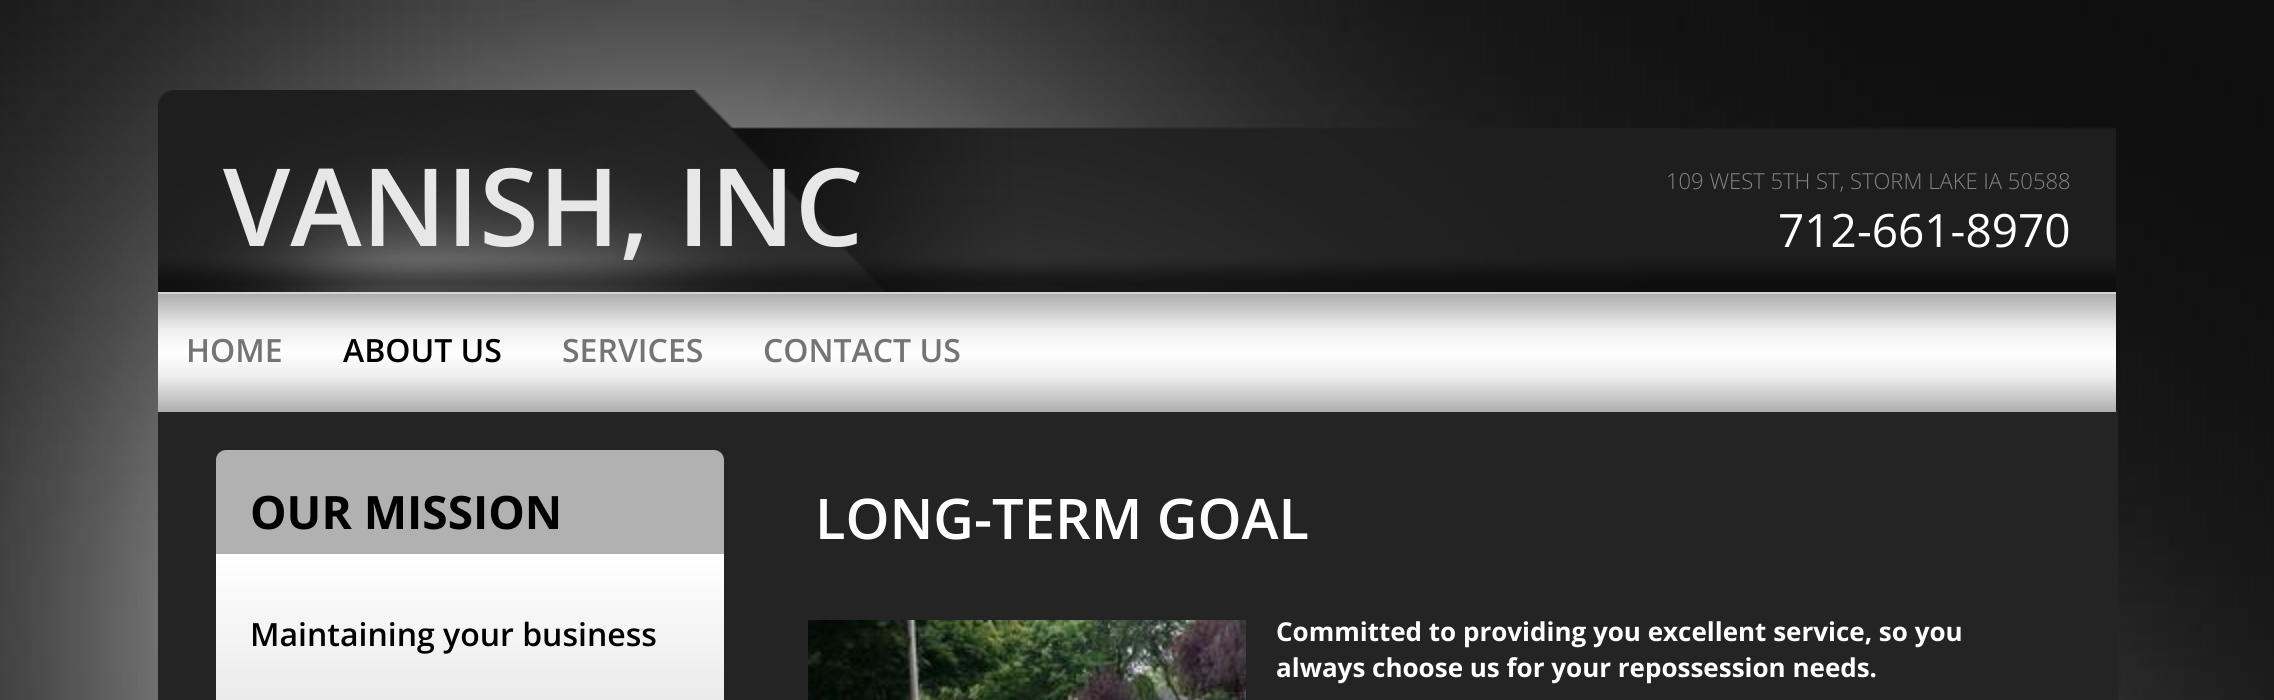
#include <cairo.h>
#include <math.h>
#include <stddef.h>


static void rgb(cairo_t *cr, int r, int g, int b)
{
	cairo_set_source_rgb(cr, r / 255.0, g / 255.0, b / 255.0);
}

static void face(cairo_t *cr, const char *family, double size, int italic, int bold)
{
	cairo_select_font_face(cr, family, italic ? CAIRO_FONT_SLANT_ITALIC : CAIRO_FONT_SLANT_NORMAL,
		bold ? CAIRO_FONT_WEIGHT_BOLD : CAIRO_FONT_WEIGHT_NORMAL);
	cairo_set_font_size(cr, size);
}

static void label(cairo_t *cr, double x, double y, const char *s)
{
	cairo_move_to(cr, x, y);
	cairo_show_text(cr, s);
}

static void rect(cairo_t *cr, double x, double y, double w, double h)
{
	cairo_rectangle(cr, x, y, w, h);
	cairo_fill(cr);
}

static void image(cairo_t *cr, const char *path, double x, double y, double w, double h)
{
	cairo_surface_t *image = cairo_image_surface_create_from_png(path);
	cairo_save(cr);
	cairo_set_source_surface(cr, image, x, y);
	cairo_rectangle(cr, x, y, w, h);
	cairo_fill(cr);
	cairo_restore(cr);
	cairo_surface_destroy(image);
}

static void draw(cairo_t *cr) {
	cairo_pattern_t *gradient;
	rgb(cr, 255, 255, 255);
	cairo_paint(cr);
	image(cr, "image0.png", 0, 0, 2274, 700);
	rgb(cr, 36, 36, 36);
	rect(cr, 158, 410, 1960, 290);
	image(cr, "image1.png", 158, 90, 1958, 202);
	face(cr, "Open Sans SemiBold", 108, 0, 0);
	rgb(cr, 231, 231, 231);
	label(cr, 223, 246, "VANISH, INC");
	face(cr, "Open Sans Light", 22, 0, 0);
	rgb(cr, 134, 133, 133);
	label(cr, 1666, 189, "109 WEST 5TH ST, STORM LAKE IA 50588");
	face(cr, "Open Sans", 46, 0, 0);
	rgb(cr, 255, 255, 255);
	label(cr, 1778, 247, "712-661-8970");
	gradient = cairo_pattern_create_linear(1137, 294, 1137, 412);
	cairo_pattern_add_color_stop_rgba(gradient, 0, 0.682, 0.682, 0.682, 1);
	cairo_pattern_add_color_stop_rgba(gradient, 0.3, 0.933, 0.933, 0.933, 1);
	cairo_pattern_add_color_stop_rgba(gradient, 0.5, 1, 1, 1, 1);
	cairo_pattern_add_color_stop_rgba(gradient, 0.7, 0.933, 0.933, 0.933, 1);
	cairo_pattern_add_color_stop_rgba(gradient, 1, 0.682, 0.682, 0.682, 1);
	cairo_set_source(cr, gradient);
	cairo_pattern_destroy(gradient);
	rect(cr, 158, 294, 1958, 118);
	rgb(cr, 212, 212, 212);
	rect(cr, 158, 292, 1958, 2);
	face(cr, "Open Sans SemiBold", 32, 0, 0);
	rgb(cr, 117, 116, 116);
	label(cr, 186, 362, "HOME");
	rgb(cr, 0, 0, 0);
	label(cr, 343, 362, "ABOUT US");
	rgb(cr, 117, 116, 116);
	label(cr, 562, 362, "SERVICES");
	label(cr, 763, 362, "CONTACT US");
	rgb(cr, 177, 177, 177);
	cairo_new_path(cr);
	cairo_move_to(cr, 226, 450);
	cairo_line_to(cr, 714, 450);
	cairo_curve_to(cr, 719.5, 450, 724, 454.5, 724, 460);
	cairo_line_to(cr, 724, 554);
	cairo_line_to(cr, 216, 554);
	cairo_line_to(cr, 216, 460);
	cairo_curve_to(cr, 216, 454.5, 220.5, 450, 226, 450);
	cairo_close_path(cr);
	cairo_fill(cr);
	face(cr, "Open Sans", 46, 0, 1);
	rgb(cr, 0, 0, 0);
	label(cr, 250, 529, "OUR MISSION");
	face(cr, "Open Sans SemiBold", 56, 0, 0);
	rgb(cr, 255, 255, 255);
	label(cr, 815, 539, "LONG-TERM GOAL");
	gradient = cairo_pattern_create_linear(470, 554, 470, 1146);
	cairo_pattern_add_color_stop_rgba(gradient, 0, 1, 1, 1, 1);
	cairo_pattern_add_color_stop_rgba(gradient, 1, 0.682, 0.682, 0.682, 1);
	cairo_set_source(cr, gradient);
	cairo_pattern_destroy(gradient);
	rect(cr, 216, 554, 508, 146);
	image(cr, "image2.png", 808, 620, 438, 80);
	face(cr, "Open Sans SemiBold", 32, 0, 0);
	rgb(cr, 0, 0, 0);
	label(cr, 250, 646, "Maintaining your business");
	face(cr, "Open Sans", 26, 0, 1);
	rgb(cr, 255, 255, 255);
	label(cr, 1276, 641, "Committed to providing you excellent service, so you");
	label(cr, 1276, 677, "always choose us for your repossession needs.");
}

int main(void) {
	cairo_surface_t *surface = cairo_image_surface_create(CAIRO_FORMAT_RGB24, 2274, 700);
	cairo_t *cr = cairo_create(surface);
	cairo_font_options_t *options = cairo_font_options_create();
	cairo_font_options_set_hint_metrics(options, CAIRO_HINT_METRICS_OFF);
	cairo_font_options_set_hint_style(options, CAIRO_HINT_STYLE_NONE);
	cairo_set_font_options(cr, options);
	cairo_set_miter_limit(cr, 4);
	draw(cr);
	cairo_surface_write_to_png(surface, "render.png");
	cairo_font_options_destroy(options);
	cairo_destroy(cr);
	cairo_surface_destroy(surface);
	return 0;
}
